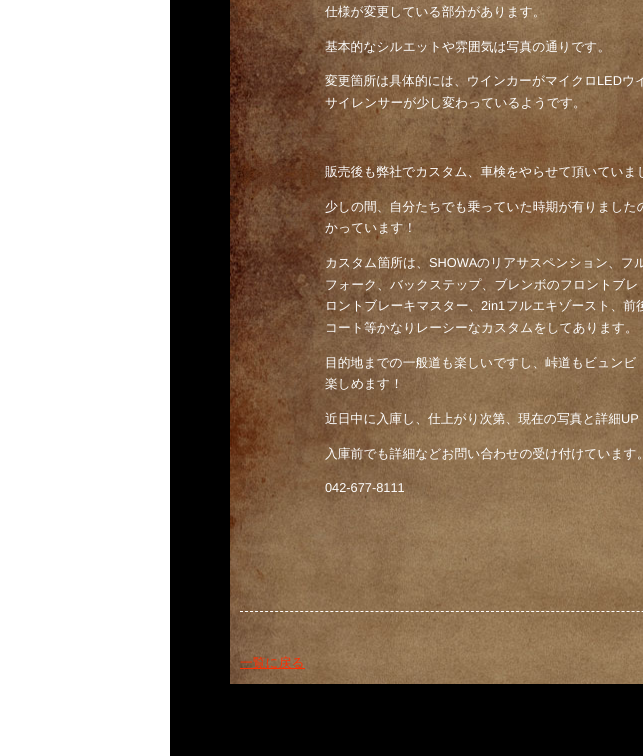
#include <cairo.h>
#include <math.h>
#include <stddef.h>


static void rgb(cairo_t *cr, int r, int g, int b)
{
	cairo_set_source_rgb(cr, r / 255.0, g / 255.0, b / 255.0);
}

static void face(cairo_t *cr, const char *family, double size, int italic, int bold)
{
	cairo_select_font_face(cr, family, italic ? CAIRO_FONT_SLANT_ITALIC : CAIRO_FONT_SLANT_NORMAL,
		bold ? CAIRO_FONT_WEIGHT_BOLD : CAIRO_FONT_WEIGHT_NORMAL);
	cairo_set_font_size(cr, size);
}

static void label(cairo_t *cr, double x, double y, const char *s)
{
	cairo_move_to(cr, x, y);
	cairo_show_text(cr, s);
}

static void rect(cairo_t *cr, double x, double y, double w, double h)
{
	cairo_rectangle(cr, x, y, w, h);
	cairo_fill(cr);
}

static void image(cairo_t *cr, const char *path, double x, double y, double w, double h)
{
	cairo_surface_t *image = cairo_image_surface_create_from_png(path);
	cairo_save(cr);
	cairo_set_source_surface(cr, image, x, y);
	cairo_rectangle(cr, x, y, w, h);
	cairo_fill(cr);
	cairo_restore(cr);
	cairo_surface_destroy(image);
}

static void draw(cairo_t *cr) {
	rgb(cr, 0, 0, 0);
	cairo_paint(cr);
	rgb(cr, 255, 255, 255);
	rect(cr, 0, 0, 170, 756);
	image(cr, "image0.png", 230, 0, 413, 684);
	cairo_new_path(cr);
	cairo_move_to(cr, 240, 611.5);
	cairo_line_to(cr, 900, 611.5);
	cairo_set_line_width(cr, 1);
	cairo_set_dash(cr, (double[]){3, 2.02}, 2, 0);
	cairo_stroke(cr);
	face(cr, "WenQuanYi Zen Hei Medium", 12.8, 0, 0);
	label(cr, 325, 16, "仕様が変更している部分があります。");
	label(cr, 325, 51, "基本的なシルエットや雰囲気は写真の通りです。");
	label(cr, 325, 85, "変更箇所は具体的には、ウインカーがマイクロ");
	face(cr, "Liberation Sans", 12.8, 0, 0);
	label(cr, 597, 85, "LED");
	face(cr, "WenQuanYi Zen Hei Medium", 12.8, 0, 0);
	label(cr, 622, 85, "ウイ");
	label(cr, 325, 107, "サイレンサーが少し変わっているようです。");
	label(cr, 325, 176, "販売後も弊社でカスタム、車検をやらせて頂いていまし");
	label(cr, 325, 211, "少しの間、自分たちでも乗っていた時期が有りましたの");
	label(cr, 325, 232, "かっています！");
	label(cr, 325, 267, "カスタム箇所は、");
	face(cr, "Liberation Sans", 12.8, 0, 0);
	label(cr, 429, 267, "SHOWA");
	face(cr, "WenQuanYi Zen Hei Medium", 12.8, 0, 0);
	label(cr, 477, 267, "のリアサスペンション、フル");
	label(cr, 325, 289, "フォーク、バックステップ、ブレンボのフロントブレ");
	label(cr, 325, 310, "ロントブレーキマスター、");
	face(cr, "Liberation Sans", 12.8, 0, 0);
	label(cr, 481, 310, "2in1");
	face(cr, "WenQuanYi Zen Hei Medium", 12.8, 0, 0);
	label(cr, 506, 310, "フルエキゾースト、前後");
	label(cr, 325, 332, "コート等かなりレーシーなカスタムをしてあります。");
	label(cr, 325, 367, "目的地までの一般道も楽しいですし、峠道もビュンビ");
	label(cr, 325, 388, "楽しめます！");
	label(cr, 325, 423, "近日中に入庫し、仕上がり次第、現在の写真と詳細");
	face(cr, "Liberation Sans", 12.8, 0, 0);
	label(cr, 621, 423, "UP");
	face(cr, "WenQuanYi Zen Hei Medium", 12.8, 0, 0);
	label(cr, 325, 458, "入庫前でも詳細などお問い合わせの受け付けています。");
	face(cr, "Liberation Sans", 12.8, 0, 0);
	label(cr, 325, 492, "042-677-8111");
	rgb(cr, 255, 46, 0);
	rect(cr, 240, 668, 65, 1);
	face(cr, "WenQuanYi Zen Hei Medium", 12.8, 0, 0);
	label(cr, 240, 667, "一覧に戻る");
}

int main(void) {
	cairo_surface_t *surface = cairo_image_surface_create(CAIRO_FORMAT_RGB24, 643, 756);
	cairo_t *cr = cairo_create(surface);
	cairo_font_options_t *options = cairo_font_options_create();
	cairo_font_options_set_hint_metrics(options, CAIRO_HINT_METRICS_OFF);
	cairo_font_options_set_hint_style(options, CAIRO_HINT_STYLE_NONE);
	cairo_set_font_options(cr, options);
	cairo_set_miter_limit(cr, 4);
	draw(cr);
	cairo_surface_write_to_png(surface, "render.png");
	cairo_font_options_destroy(options);
	cairo_destroy(cr);
	cairo_surface_destroy(surface);
	return 0;
}
